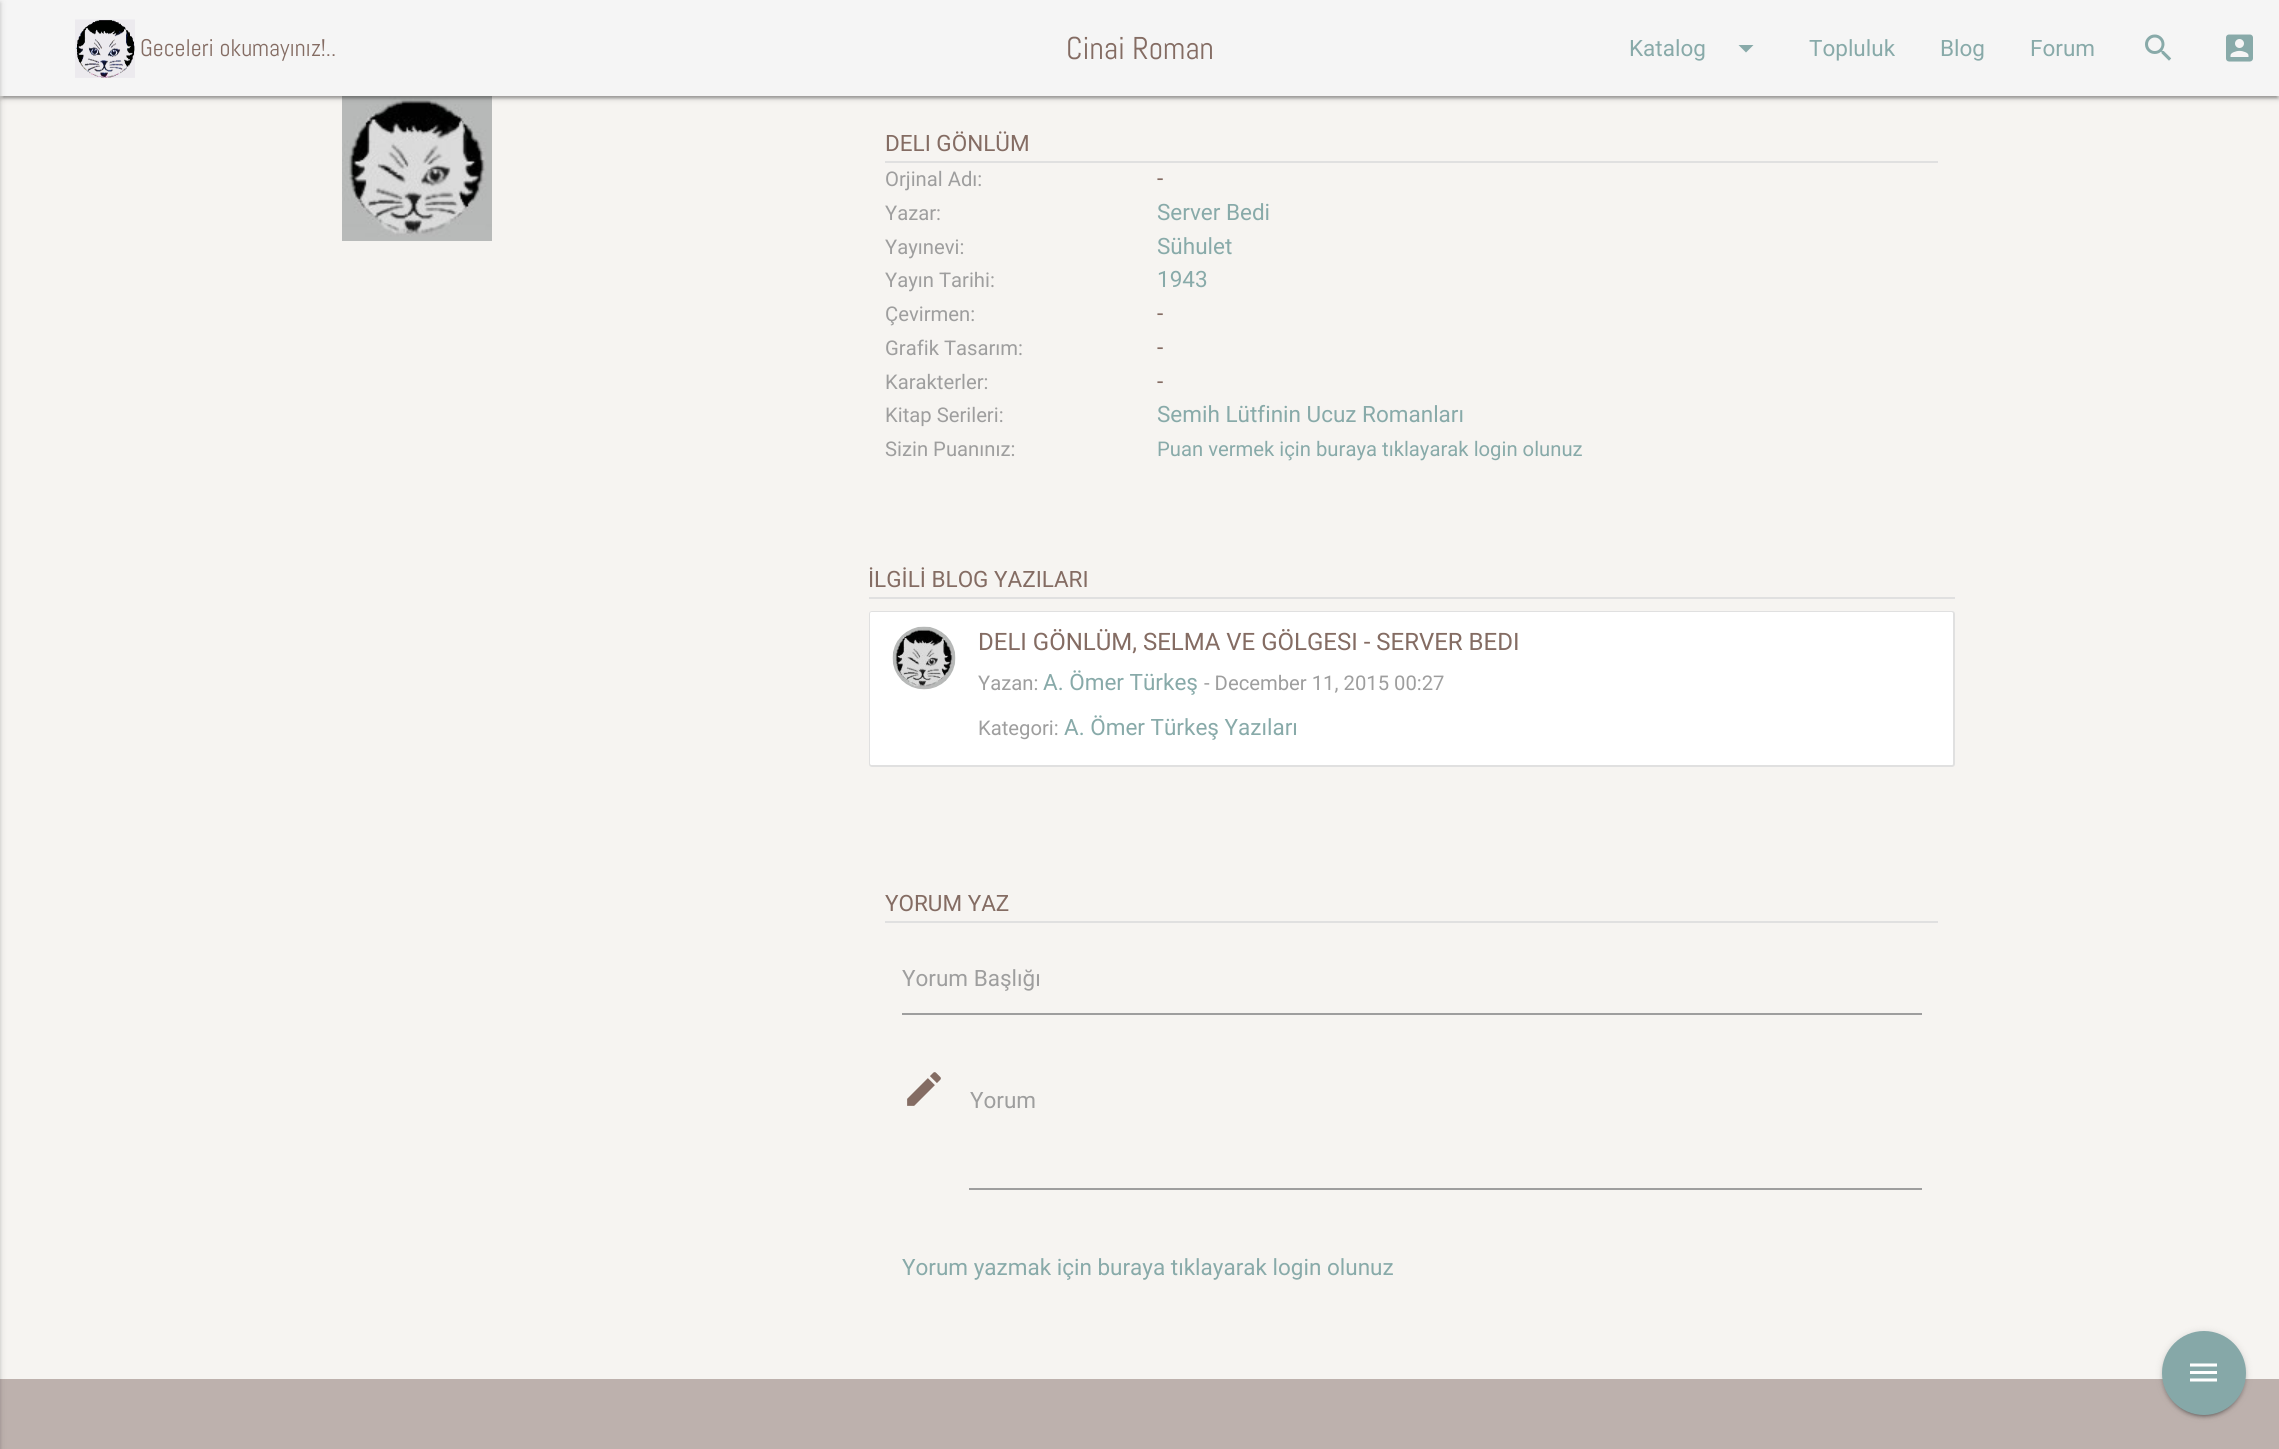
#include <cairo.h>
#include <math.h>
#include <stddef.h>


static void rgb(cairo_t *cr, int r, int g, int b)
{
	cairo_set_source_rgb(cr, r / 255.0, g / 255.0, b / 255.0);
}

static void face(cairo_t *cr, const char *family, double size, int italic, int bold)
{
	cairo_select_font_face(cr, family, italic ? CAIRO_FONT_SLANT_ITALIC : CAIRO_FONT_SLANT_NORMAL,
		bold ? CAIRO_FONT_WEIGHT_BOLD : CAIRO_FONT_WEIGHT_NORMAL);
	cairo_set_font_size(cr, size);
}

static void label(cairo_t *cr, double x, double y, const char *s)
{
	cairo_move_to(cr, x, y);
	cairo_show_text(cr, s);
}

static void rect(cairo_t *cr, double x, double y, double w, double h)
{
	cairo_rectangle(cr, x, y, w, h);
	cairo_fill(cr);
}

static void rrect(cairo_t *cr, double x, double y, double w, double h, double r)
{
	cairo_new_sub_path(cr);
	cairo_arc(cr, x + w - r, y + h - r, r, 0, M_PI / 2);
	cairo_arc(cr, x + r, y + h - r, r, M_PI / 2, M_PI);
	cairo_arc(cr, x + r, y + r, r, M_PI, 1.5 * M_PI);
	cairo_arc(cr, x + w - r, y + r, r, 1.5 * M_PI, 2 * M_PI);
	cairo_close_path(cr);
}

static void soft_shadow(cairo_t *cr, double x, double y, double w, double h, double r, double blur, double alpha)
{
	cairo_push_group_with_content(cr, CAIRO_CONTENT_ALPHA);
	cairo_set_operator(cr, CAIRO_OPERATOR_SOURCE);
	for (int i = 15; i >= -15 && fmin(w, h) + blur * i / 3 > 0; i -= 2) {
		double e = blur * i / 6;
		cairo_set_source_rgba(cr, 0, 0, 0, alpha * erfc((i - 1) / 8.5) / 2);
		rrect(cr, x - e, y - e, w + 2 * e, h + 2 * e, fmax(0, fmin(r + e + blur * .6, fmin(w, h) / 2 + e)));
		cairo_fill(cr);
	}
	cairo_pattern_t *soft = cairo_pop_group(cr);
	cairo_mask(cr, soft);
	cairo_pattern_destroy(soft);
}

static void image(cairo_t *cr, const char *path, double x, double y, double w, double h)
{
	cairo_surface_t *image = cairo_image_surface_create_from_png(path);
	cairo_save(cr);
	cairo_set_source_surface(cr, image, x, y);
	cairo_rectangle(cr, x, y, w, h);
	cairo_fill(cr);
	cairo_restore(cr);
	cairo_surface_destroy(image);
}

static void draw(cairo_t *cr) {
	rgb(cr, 246, 244, 241);
	cairo_paint(cr);
	image(cr, "image3.png", 342, 96, 150, 145);
	rgb(cr, 0, 0, 0);
	soft_shadow(cr, 3, 8, 2274, 90, 0, 1, 0.2);
	soft_shadow(cr, 0, 2, 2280, 96, 0, 4, 0.12);
	soft_shadow(cr, 0, 3, 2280, 96, 0, 1.5, 0.14);
	rgb(cr, 245, 245, 245);
	rect(cr, 0, 0, 2279, 96);
	rgb(cr, 189, 177, 173);
	rect(cr, 0, 1379, 2279, 70);
	rgb(cr, 0, 0, 0);
	soft_shadow(cr, -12, 2, 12, 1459, 0, 4, 0.12);
	soft_shadow(cr, -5, 3, 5, 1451, 0, 1.5, 0.14);
	image(cr, "image0.png", 75, 19, 60, 59);
	face(cr, "Abel", 24, 0, 0);
	rgb(cr, 132, 108, 99);
	label(cr, 140, 56, "Geceleri okumayınız!..");
	face(cr, "Abel", 31.5, 0, 0);
	label(cr, 1066, 59, "Cinai Roman");
	face(cr, "Roboto", 22.5, 0, 0);
	rgb(cr, 136, 170, 169);
	label(cr, 1629, 56, "Katalog");
	cairo_new_path(cr);
	cairo_move_to(cr, 1738.5, 45);
	cairo_line_to(cr, 1753.5, 45);
	cairo_line_to(cr, 1746, 52.5);
	cairo_close_path(cr);
	cairo_fill(cr);
	label(cr, 1809, 56, "Topluluk");
	label(cr, 1940, 56, "Blog");
	label(cr, 2030, 56, "Forum");
	image(cr, "image1.png", 2145, 34, 27, 27);
	image(cr, "image2.png", 2226, 34, 27, 28);
	rgb(cr, 132, 108, 99);
	label(cr, 885, 151, "DELI GÖNLÜM");
	rgb(cr, 224, 224, 224);
	rect(cr, 885, 161, 1053, 2);
	face(cr, "Roboto", 20.25, 0, 0);
	rgb(cr, 158, 158, 158);
	label(cr, 885, 186, "Orjinal Adı:");
	face(cr, "Roboto", 22.5, 0, 0);
	rgb(cr, 132, 108, 99);
	label(cr, 1157, 186, "-");
	face(cr, "Roboto", 20.25, 0, 0);
	rgb(cr, 158, 158, 158);
	label(cr, 885, 220, "Yazar:");
	face(cr, "Roboto", 22.5, 0, 0);
	rgb(cr, 136, 170, 169);
	label(cr, 1157, 220, "Server Bedi");
	face(cr, "Roboto", 20.25, 0, 0);
	rgb(cr, 158, 158, 158);
	label(cr, 885, 254, "Yayınevi:");
	face(cr, "Roboto", 22.5, 0, 0);
	rgb(cr, 136, 170, 169);
	label(cr, 1157, 254, "Sühulet");
	face(cr, "Roboto", 20.25, 0, 0);
	rgb(cr, 158, 158, 158);
	label(cr, 885, 287, "Yayın Tarihi:");
	face(cr, "Roboto", 22.5, 0, 0);
	rgb(cr, 136, 170, 169);
	label(cr, 1157, 287, "1943");
	face(cr, "Roboto", 20.25, 0, 0);
	rgb(cr, 158, 158, 158);
	label(cr, 885, 321, "Çevirmen:");
	face(cr, "Roboto", 22.5, 0, 0);
	rgb(cr, 132, 108, 99);
	label(cr, 1157, 321, "-");
	face(cr, "Roboto", 20.25, 0, 0);
	rgb(cr, 158, 158, 158);
	label(cr, 885, 355, "Grafik Tasarım:");
	face(cr, "Roboto", 22.5, 0, 0);
	rgb(cr, 132, 108, 99);
	label(cr, 1157, 355, "-");
	face(cr, "Roboto", 20.25, 0, 0);
	rgb(cr, 158, 158, 158);
	label(cr, 885, 389, "Karakterler:");
	face(cr, "Roboto", 22.5, 0, 0);
	rgb(cr, 132, 108, 99);
	label(cr, 1157, 389, "-");
	face(cr, "Roboto", 20.25, 0, 0);
	rgb(cr, 158, 158, 158);
	label(cr, 885, 422, "Kitap Serileri:");
	face(cr, "Roboto", 22.5, 0, 0);
	rgb(cr, 136, 170, 169);
	label(cr, 1157, 422, "Semih Lütfinin Ucuz Romanları");
	face(cr, "Roboto", 20.25, 0, 0);
	rgb(cr, 158, 158, 158);
	label(cr, 885, 456, "Sizin Puanınız:");
	rgb(cr, 136, 170, 169);
	label(cr, 1157, 456, "Puan vermek için buraya tıklayarak login olunuz");
	face(cr, "Roboto", 22.5, 0, 0);
	rgb(cr, 132, 108, 99);
	label(cr, 868, 587, "İLGİLİ BLOG YAZILARI");
	rgb(cr, 224, 224, 224);
	rect(cr, 869, 597, 1086, 2);
	rrect(cr, 870, 612, 1084, 154, 2);
	cairo_stroke(cr);
	rgb(cr, 255, 255, 255);
	rrect(cr, 870, 612, 1083, 153, 1.5);
	cairo_fill(cr);
	image(cr, "image4.png", 892, 626, 64, 64);
	face(cr, "Roboto", 24, 0, 0);
	rgb(cr, 132, 108, 99);
	label(cr, 978, 650, "DELI GÖNLÜM, SELMA VE GÖLGESI - SERVER BEDI");
	face(cr, "Roboto", 20.25, 0, 0);
	rgb(cr, 158, 158, 158);
	label(cr, 978, 690, "Yazan:");
	face(cr, "Roboto", 22.5, 0, 0);
	rgb(cr, 136, 170, 169);
	label(cr, 1043, 690, "A. Ömer Türkeş");
	face(cr, "Roboto", 20.25, 0, 0);
	rgb(cr, 158, 158, 158);
	label(cr, 1204, 690, "- December 11, 2015 00:27");
	label(cr, 978, 735, "Kategori:");
	face(cr, "Roboto", 22.5, 0, 0);
	rgb(cr, 136, 170, 169);
	label(cr, 1064, 735, "A. Ömer Türkeş Yazıları");
	rgb(cr, 132, 108, 99);
	label(cr, 885, 911, "YORUM YAZ");
	rgb(cr, 224, 224, 224);
	rect(cr, 885, 921, 1053, 2);
	rgb(cr, 158, 158, 158);
	label(cr, 902, 986, "Yorum Başlığı");
	rect(cr, 902, 1013, 1020, 2);
	image(cr, "image5.png", 907, 1072, 34, 34);
	label(cr, 970, 1108, "Yorum");
	rect(cr, 969, 1188, 953, 2);
	rgb(cr, 136, 170, 169);
	label(cr, 902, 1275, "Yorum yazmak için buraya tıklayarak login olunuz");
	rgb(cr, 0, 0, 0);
	soft_shadow(cr, 2165, 1338, 78, 78, 39, 1, 0.2);
	soft_shadow(cr, 2162, 1332, 84, 84, 42, 4, 0.12);
	soft_shadow(cr, 2162, 1334, 84, 84, 42, 1.5, 0.14);
	rgb(cr, 134, 168, 168);
	cairo_arc(cr, 2204, 1373, 42, 0, 2 * M_PI);
	cairo_fill(cr);
	image(cr, "image6.png", 2190, 1363, 27, 19);
}

int main(void) {
	cairo_surface_t *surface = cairo_image_surface_create(CAIRO_FORMAT_RGB24, 2279, 1449);
	cairo_t *cr = cairo_create(surface);
	cairo_font_options_t *options = cairo_font_options_create();
	cairo_font_options_set_hint_metrics(options, CAIRO_HINT_METRICS_OFF);
	cairo_font_options_set_hint_style(options, CAIRO_HINT_STYLE_NONE);
	cairo_set_font_options(cr, options);
	cairo_set_miter_limit(cr, 4);
	draw(cr);
	cairo_surface_write_to_png(surface, "render.png");
	cairo_font_options_destroy(options);
	cairo_destroy(cr);
	cairo_surface_destroy(surface);
	return 0;
}
